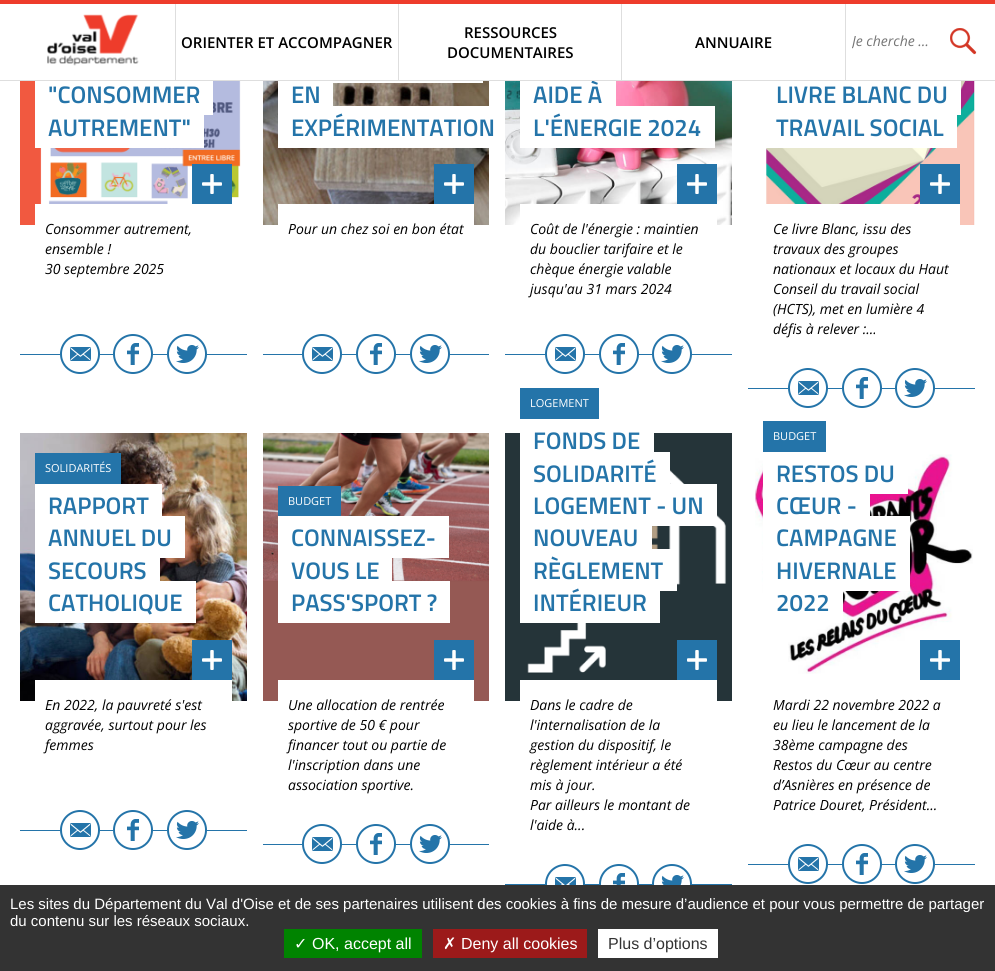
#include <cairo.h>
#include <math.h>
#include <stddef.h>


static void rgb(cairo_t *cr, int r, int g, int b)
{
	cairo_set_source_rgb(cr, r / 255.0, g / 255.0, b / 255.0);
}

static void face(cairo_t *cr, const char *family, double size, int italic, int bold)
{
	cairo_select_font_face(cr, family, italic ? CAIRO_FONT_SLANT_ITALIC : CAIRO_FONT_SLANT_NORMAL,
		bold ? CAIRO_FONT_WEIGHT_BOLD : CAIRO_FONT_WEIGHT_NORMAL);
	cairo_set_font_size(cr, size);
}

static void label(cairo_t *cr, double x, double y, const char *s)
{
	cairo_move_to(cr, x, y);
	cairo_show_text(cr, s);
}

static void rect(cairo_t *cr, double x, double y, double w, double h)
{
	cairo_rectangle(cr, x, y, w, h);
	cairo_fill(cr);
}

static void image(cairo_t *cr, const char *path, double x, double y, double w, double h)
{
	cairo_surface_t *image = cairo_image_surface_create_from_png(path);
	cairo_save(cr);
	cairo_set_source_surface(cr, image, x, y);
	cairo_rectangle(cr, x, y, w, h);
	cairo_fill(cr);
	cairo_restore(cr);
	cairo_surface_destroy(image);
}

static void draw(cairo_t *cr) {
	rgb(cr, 255, 255, 255);
	cairo_paint(cr);
	rgb(cr, 238, 60, 43);
	rect(cr, 0, 0, 995, 4);
	image(cr, "image2.png", 20, 81, 221, 144);
	rgb(cr, 255, 255, 255);
	cairo_new_path(cr);
	cairo_move_to(cr, 55, 73);
	cairo_line_to(cr, 55, 76);
	cairo_line_to(cr, 200, 76);
	cairo_line_to(cr, 200, 112);
	cairo_line_to(cr, 55, 112);
	cairo_line_to(cr, 55, 115);
	cairo_line_to(cr, 213, 115);
	cairo_line_to(cr, 213, 73);
	cairo_close_path(cr);
	cairo_fill(cr);
	cairo_new_path(cr);
	cairo_move_to(cr, 35, 73);
	cairo_line_to(cr, 35, 115);
	cairo_line_to(cr, 193, 115);
	cairo_line_to(cr, 193, 112);
	cairo_line_to(cr, 48, 112);
	cairo_line_to(cr, 48, 76);
	cairo_line_to(cr, 193, 76);
	cairo_line_to(cr, 193, 73);
	cairo_close_path(cr);
	cairo_fill(cr);
	image(cr, "image7.png", 263, 81, 226, 144);
	cairo_new_path(cr);
	cairo_move_to(cr, 298, 41);
	cairo_line_to(cr, 298, 44);
	cairo_line_to(cr, 470, 44);
	cairo_line_to(cr, 470, 80);
	cairo_line_to(cr, 298, 80);
	cairo_line_to(cr, 298, 83);
	cairo_line_to(cr, 483, 83);
	cairo_line_to(cr, 483, 41);
	cairo_close_path(cr);
	cairo_fill(cr);
	cairo_new_path(cr);
	cairo_move_to(cr, 278, 41);
	cairo_line_to(cr, 278, 83);
	cairo_line_to(cr, 463, 83);
	cairo_line_to(cr, 463, 80);
	cairo_line_to(cr, 291, 80);
	cairo_line_to(cr, 291, 44);
	cairo_line_to(cr, 463, 44);
	cairo_line_to(cr, 463, 41);
	cairo_close_path(cr);
	cairo_fill(cr);
	cairo_new_path(cr);
	cairo_move_to(cr, 298, 73);
	cairo_line_to(cr, 298, 76);
	cairo_line_to(cr, 320, 76);
	cairo_line_to(cr, 320, 112);
	cairo_line_to(cr, 298, 112);
	cairo_line_to(cr, 298, 115);
	cairo_line_to(cr, 333, 115);
	cairo_line_to(cr, 333, 73);
	cairo_close_path(cr);
	cairo_fill(cr);
	cairo_new_path(cr);
	cairo_move_to(cr, 278, 73);
	cairo_line_to(cr, 278, 115);
	cairo_line_to(cr, 313, 115);
	cairo_line_to(cr, 313, 112);
	cairo_line_to(cr, 291, 112);
	cairo_line_to(cr, 291, 76);
	cairo_line_to(cr, 313, 76);
	cairo_line_to(cr, 313, 73);
	cairo_close_path(cr);
	cairo_fill(cr);
	cairo_new_path(cr);
	cairo_move_to(cr, 298, 106);
	cairo_line_to(cr, 298, 109);
	cairo_line_to(cr, 495, 109);
	cairo_line_to(cr, 495, 145);
	cairo_line_to(cr, 298, 145);
	cairo_line_to(cr, 298, 148);
	cairo_line_to(cr, 508, 148);
	cairo_line_to(cr, 508, 106);
	cairo_close_path(cr);
	cairo_fill(cr);
	image(cr, "image8.png", 505, 81, 227, 144);
	cairo_new_path(cr);
	cairo_move_to(cr, 540, 73);
	cairo_line_to(cr, 540, 76);
	cairo_line_to(cr, 603, 76);
	cairo_line_to(cr, 603, 112);
	cairo_line_to(cr, 540, 112);
	cairo_line_to(cr, 540, 115);
	cairo_line_to(cr, 616, 115);
	cairo_line_to(cr, 616, 73);
	cairo_close_path(cr);
	cairo_fill(cr);
	cairo_new_path(cr);
	cairo_move_to(cr, 520, 73);
	cairo_line_to(cr, 520, 115);
	cairo_line_to(cr, 596, 115);
	cairo_line_to(cr, 596, 112);
	cairo_line_to(cr, 533, 112);
	cairo_line_to(cr, 533, 76);
	cairo_line_to(cr, 596, 76);
	cairo_line_to(cr, 596, 73);
	cairo_close_path(cr);
	cairo_fill(cr);
	rect(cr, 533, 81, 70, 25);
	face(cr, "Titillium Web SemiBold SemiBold", 24, 0, 0);
	rgb(cr, 36, 116, 169);
	label(cr, 533, 103, "AIDE À");
	image(cr, "image9.png", 766, 81, 209, 144);
	rgb(cr, 255, 255, 255);
	cairo_new_path(cr);
	cairo_move_to(cr, 783, 73);
	cairo_line_to(cr, 783, 76);
	cairo_line_to(cr, 948, 76);
	cairo_line_to(cr, 948, 112);
	cairo_line_to(cr, 783, 112);
	cairo_line_to(cr, 783, 115);
	cairo_line_to(cr, 961, 115);
	cairo_line_to(cr, 961, 73);
	cairo_close_path(cr);
	cairo_fill(cr);
	cairo_new_path(cr);
	cairo_move_to(cr, 763, 73);
	cairo_line_to(cr, 763, 115);
	cairo_line_to(cr, 941, 115);
	cairo_line_to(cr, 941, 112);
	cairo_line_to(cr, 776, 112);
	cairo_line_to(cr, 776, 76);
	cairo_line_to(cr, 941, 76);
	cairo_line_to(cr, 941, 73);
	cairo_close_path(cr);
	cairo_fill(cr);
	rgb(cr, 222, 222, 222);
	rect(cr, 0, 80, 995, 1);
	rect(cr, 175, 4, 1, 76);
	image(cr, "image0.png", 47, 14, 92, 52);
	rect(cr, 398, 4, 1, 76);
	face(cr, "Open Sans SemiBold", 15, 0, 0);
	rgb(cr, 0, 0, 0);
	label(cr, 181, 48, "ORIENTER ET ACCOMPAGNER");
	rgb(cr, 222, 222, 222);
	rect(cr, 621, 4, 1, 76);
	rgb(cr, 0, 0, 0);
	label(cr, 464, 38, "RESSOURCES");
	label(cr, 447, 58, "DOCUMENTAIRES");
	rgb(cr, 222, 222, 222);
	rect(cr, 845, 4, 1, 76);
	rgb(cr, 0, 0, 0);
	label(cr, 695, 48, "ANNUAIRE");
	cairo_save(cr);
	cairo_rectangle(cr, 852, 31, 77, 19);
	cairo_clip(cr);
	face(cr, "Open Sans", 14, 1, 0);
	rgb(cr, 117, 117, 117);
	label(cr, 852, 46, "Je cherche …");
	cairo_restore(cr);
	image(cr, "image1.png", 950, 28, 27, 27);
	rgb(cr, 255, 255, 255);
	rect(cr, 50, 81, 150, 25);
	face(cr, "Titillium Web SemiBold SemiBold", 24, 0, 0);
	rgb(cr, 36, 116, 169);
	label(cr, 48, 103, "\"CONSOMMER");
	rgb(cr, 255, 255, 255);
	cairo_new_path(cr);
	cairo_move_to(cr, 55, 106);
	cairo_line_to(cr, 55, 109);
	cairo_line_to(cr, 191, 109);
	cairo_line_to(cr, 191, 145);
	cairo_line_to(cr, 55, 145);
	cairo_line_to(cr, 55, 148);
	cairo_line_to(cr, 204, 148);
	cairo_line_to(cr, 204, 106);
	cairo_close_path(cr);
	cairo_fill(cr);
	cairo_new_path(cr);
	cairo_move_to(cr, 35, 106);
	cairo_line_to(cr, 35, 148);
	cairo_line_to(cr, 184, 148);
	cairo_line_to(cr, 184, 145);
	cairo_line_to(cr, 48, 145);
	cairo_line_to(cr, 48, 109);
	cairo_line_to(cr, 184, 109);
	cairo_line_to(cr, 184, 106);
	cairo_close_path(cr);
	cairo_fill(cr);
	rect(cr, 50, 109, 141, 36);
	rgb(cr, 36, 116, 169);
	label(cr, 48, 136, "AUTREMENT\"");
	rgb(cr, 255, 255, 255);
	rect(cr, 35, 204, 187, 21);
	rgb(cr, 36, 116, 169);
	rect(cr, 192, 164, 40, 40);
	image(cr, "image3.png", 202, 174, 20, 20);
	face(cr, "Open Sans", 14, 1, 0);
	rgb(cr, 0, 0, 0);
	label(cr, 45, 234, "Consommer autrement,");
	label(cr, 45, 254, "ensemble !");
	label(cr, 45, 274, "30 septembre 2025");
	rgb(cr, 36, 116, 169);
	rect(cr, 20, 354, 227, 1);
	rgb(cr, 255, 255, 255);
	rect(cr, 60, 354, 40, 1);
	image(cr, "image4.png", 60, 334, 40, 40);
	rect(cr, 113, 354, 40, 1);
	image(cr, "image5.png", 113, 334, 40, 40);
	rect(cr, 167, 354, 40, 1);
	image(cr, "image6.png", 167, 334, 40, 40);
	rect(cr, 291, 83, 29, 23);
	face(cr, "Titillium Web SemiBold SemiBold", 24, 0, 0);
	rgb(cr, 36, 116, 169);
	label(cr, 291, 103, "EN");
	rgb(cr, 255, 255, 255);
	cairo_new_path(cr);
	cairo_move_to(cr, 278, 106);
	cairo_line_to(cr, 278, 148);
	cairo_line_to(cr, 488, 148);
	cairo_line_to(cr, 488, 145);
	cairo_line_to(cr, 291, 145);
	cairo_line_to(cr, 291, 109);
	cairo_line_to(cr, 488, 109);
	cairo_line_to(cr, 488, 106);
	cairo_close_path(cr);
	cairo_fill(cr);
	rect(cr, 291, 109, 198, 36);
	rgb(cr, 36, 116, 169);
	label(cr, 291, 136, "EXPÉRIMENTATION");
	rgb(cr, 255, 255, 255);
	rect(cr, 278, 204, 196, 21);
	rgb(cr, 36, 116, 169);
	rect(cr, 434, 164, 40, 40);
	image(cr, "image3.png", 444, 174, 20, 20);
	face(cr, "Open Sans", 14, 1, 0);
	rgb(cr, 0, 0, 0);
	label(cr, 288, 234, "Pour un chez soi en bon état");
	rgb(cr, 36, 116, 169);
	rect(cr, 263, 354, 226, 1);
	rgb(cr, 255, 255, 255);
	rect(cr, 302, 354, 40, 1);
	image(cr, "image4.png", 302, 334, 40, 40);
	rect(cr, 356, 354, 40, 1);
	image(cr, "image5.png", 356, 334, 40, 40);
	rect(cr, 410, 354, 40, 1);
	image(cr, "image6.png", 410, 334, 40, 40);
	cairo_new_path(cr);
	cairo_move_to(cr, 540, 106);
	cairo_line_to(cr, 540, 109);
	cairo_line_to(cr, 702, 109);
	cairo_line_to(cr, 702, 145);
	cairo_line_to(cr, 540, 145);
	cairo_line_to(cr, 540, 148);
	cairo_line_to(cr, 715, 148);
	cairo_line_to(cr, 715, 106);
	cairo_close_path(cr);
	cairo_fill(cr);
	cairo_new_path(cr);
	cairo_move_to(cr, 520, 106);
	cairo_line_to(cr, 520, 148);
	cairo_line_to(cr, 695, 148);
	cairo_line_to(cr, 695, 145);
	cairo_line_to(cr, 533, 145);
	cairo_line_to(cr, 533, 109);
	cairo_line_to(cr, 695, 109);
	cairo_line_to(cr, 695, 106);
	cairo_close_path(cr);
	cairo_fill(cr);
	rect(cr, 533, 109, 169, 36);
	face(cr, "Titillium Web SemiBold SemiBold", 24, 0, 0);
	rgb(cr, 36, 116, 169);
	label(cr, 533, 136, "L'ÉNERGIE 2024");
	rgb(cr, 255, 255, 255);
	rect(cr, 520, 204, 197, 21);
	rgb(cr, 36, 116, 169);
	rect(cr, 677, 164, 40, 40);
	image(cr, "image3.png", 687, 174, 20, 20);
	face(cr, "Open Sans", 14, 1, 0);
	rgb(cr, 0, 0, 0);
	label(cr, 530, 234, "Coût de l'énergie : maintien");
	label(cr, 530, 254, "du bouclier tarifaire et le");
	label(cr, 530, 274, "chèque énergie valable");
	label(cr, 530, 294, "jusqu'au 31 mars 2024");
	rgb(cr, 36, 116, 169);
	rect(cr, 505, 354, 227, 1);
	rgb(cr, 255, 255, 255);
	rect(cr, 545, 354, 40, 1);
	image(cr, "image4.png", 545, 334, 40, 40);
	rect(cr, 599, 354, 40, 1);
	image(cr, "image5.png", 599, 334, 40, 40);
	rect(cr, 652, 354, 40, 1);
	image(cr, "image6.png", 652, 334, 40, 40);
	rect(cr, 776, 81, 172, 25);
	face(cr, "Titillium Web SemiBold SemiBold", 24, 0, 0);
	rgb(cr, 36, 116, 169);
	label(cr, 776, 103, "LIVRE BLANC DU");
	rgb(cr, 255, 255, 255);
	cairo_new_path(cr);
	cairo_move_to(cr, 783, 106);
	cairo_line_to(cr, 783, 109);
	cairo_line_to(cr, 944, 109);
	cairo_line_to(cr, 944, 145);
	cairo_line_to(cr, 783, 145);
	cairo_line_to(cr, 783, 148);
	cairo_line_to(cr, 957, 148);
	cairo_line_to(cr, 957, 106);
	cairo_close_path(cr);
	cairo_fill(cr);
	cairo_new_path(cr);
	cairo_move_to(cr, 763, 106);
	cairo_line_to(cr, 763, 148);
	cairo_line_to(cr, 937, 148);
	cairo_line_to(cr, 937, 145);
	cairo_line_to(cr, 776, 145);
	cairo_line_to(cr, 776, 109);
	cairo_line_to(cr, 937, 109);
	cairo_line_to(cr, 937, 106);
	cairo_close_path(cr);
	cairo_fill(cr);
	rect(cr, 776, 109, 168, 36);
	rgb(cr, 36, 116, 169);
	label(cr, 776, 136, "TRAVAIL SOCIAL");
	rgb(cr, 255, 255, 255);
	rect(cr, 766, 204, 194, 21);
	rgb(cr, 36, 116, 169);
	rect(cr, 920, 164, 40, 40);
	image(cr, "image3.png", 930, 174, 20, 20);
	face(cr, "Open Sans", 14, 1, 0);
	rgb(cr, 0, 0, 0);
	label(cr, 773, 234, "Ce livre Blanc, issu des");
	label(cr, 773, 254, "travaux des groupes");
	label(cr, 773, 274, "nationaux et locaux du Haut");
	label(cr, 773, 294, "Conseil du travail social");
	label(cr, 773, 314, "(HCTS), met en lumière 4");
	label(cr, 773, 334, "défis à relever :...");
	rgb(cr, 36, 116, 169);
	rect(cr, 748, 388, 227, 1);
	rgb(cr, 255, 255, 255);
	rect(cr, 788, 388, 40, 1);
	image(cr, "image4.png", 788, 368, 40, 40);
	rect(cr, 842, 388, 40, 1);
	image(cr, "image5.png", 842, 368, 40, 40);
	rect(cr, 895, 388, 40, 1);
	image(cr, "image6.png", 895, 368, 40, 40);
	image(cr, "image10.png", 20, 433, 227, 268);
	rgb(cr, 36, 116, 169);
	rect(cr, 35, 453, 86, 31);
	face(cr, "Open Sans", 11, 0, 0);
	rgb(cr, 255, 255, 255);
	label(cr, 45, 472, "SOLIDARITÉS");
	cairo_new_path(cr);
	cairo_move_to(cr, 55, 484);
	cairo_line_to(cr, 55, 487);
	cairo_line_to(cr, 149, 487);
	cairo_line_to(cr, 149, 523);
	cairo_line_to(cr, 55, 523);
	cairo_line_to(cr, 55, 526);
	cairo_line_to(cr, 162, 526);
	cairo_line_to(cr, 162, 484);
	cairo_close_path(cr);
	cairo_fill(cr);
	cairo_new_path(cr);
	cairo_move_to(cr, 35, 484);
	cairo_line_to(cr, 35, 526);
	cairo_line_to(cr, 142, 526);
	cairo_line_to(cr, 142, 523);
	cairo_line_to(cr, 48, 523);
	cairo_line_to(cr, 48, 487);
	cairo_line_to(cr, 142, 487);
	cairo_line_to(cr, 142, 484);
	cairo_close_path(cr);
	cairo_fill(cr);
	rect(cr, 48, 487, 101, 29);
	face(cr, "Titillium Web SemiBold SemiBold", 24, 0, 0);
	rgb(cr, 36, 116, 169);
	label(cr, 48, 514, "RAPPORT");
	rgb(cr, 255, 255, 255);
	cairo_new_path(cr);
	cairo_move_to(cr, 55, 516);
	cairo_line_to(cr, 55, 519);
	cairo_line_to(cr, 172, 519);
	cairo_line_to(cr, 172, 555);
	cairo_line_to(cr, 55, 555);
	cairo_line_to(cr, 55, 558);
	cairo_line_to(cr, 185, 558);
	cairo_line_to(cr, 185, 516);
	cairo_close_path(cr);
	cairo_fill(cr);
	cairo_new_path(cr);
	cairo_move_to(cr, 35, 516);
	cairo_line_to(cr, 35, 558);
	cairo_line_to(cr, 165, 558);
	cairo_line_to(cr, 165, 555);
	cairo_line_to(cr, 48, 555);
	cairo_line_to(cr, 48, 519);
	cairo_line_to(cr, 165, 519);
	cairo_line_to(cr, 165, 516);
	cairo_close_path(cr);
	cairo_fill(cr);
	rect(cr, 48, 519, 124, 36);
	rgb(cr, 36, 116, 169);
	label(cr, 48, 546, "ANNUEL DU");
	rgb(cr, 255, 255, 255);
	cairo_new_path(cr);
	cairo_move_to(cr, 55, 549);
	cairo_line_to(cr, 55, 552);
	cairo_line_to(cr, 147, 552);
	cairo_line_to(cr, 147, 588);
	cairo_line_to(cr, 55, 588);
	cairo_line_to(cr, 55, 591);
	cairo_line_to(cr, 160, 591);
	cairo_line_to(cr, 160, 549);
	cairo_close_path(cr);
	cairo_fill(cr);
	cairo_new_path(cr);
	cairo_move_to(cr, 35, 549);
	cairo_line_to(cr, 35, 591);
	cairo_line_to(cr, 140, 591);
	cairo_line_to(cr, 140, 588);
	cairo_line_to(cr, 48, 588);
	cairo_line_to(cr, 48, 552);
	cairo_line_to(cr, 140, 552);
	cairo_line_to(cr, 140, 549);
	cairo_close_path(cr);
	cairo_fill(cr);
	rect(cr, 48, 558, 99, 23);
	rgb(cr, 36, 116, 169);
	label(cr, 48, 579, "SECOURS");
	rgb(cr, 255, 255, 255);
	cairo_new_path(cr);
	cairo_move_to(cr, 55, 581);
	cairo_line_to(cr, 55, 584);
	cairo_line_to(cr, 183, 584);
	cairo_line_to(cr, 183, 620);
	cairo_line_to(cr, 55, 620);
	cairo_line_to(cr, 55, 623);
	cairo_line_to(cr, 196, 623);
	cairo_line_to(cr, 196, 581);
	cairo_close_path(cr);
	cairo_fill(cr);
	cairo_new_path(cr);
	cairo_move_to(cr, 35, 581);
	cairo_line_to(cr, 35, 623);
	cairo_line_to(cr, 176, 623);
	cairo_line_to(cr, 176, 620);
	cairo_line_to(cr, 48, 620);
	cairo_line_to(cr, 48, 584);
	cairo_line_to(cr, 176, 584);
	cairo_line_to(cr, 176, 581);
	cairo_close_path(cr);
	cairo_fill(cr);
	rect(cr, 48, 584, 135, 36);
	rgb(cr, 36, 116, 169);
	label(cr, 48, 611, "CATHOLIQUE");
	rgb(cr, 255, 255, 255);
	rect(cr, 35, 680, 197, 21);
	rgb(cr, 36, 116, 169);
	rect(cr, 192, 640, 40, 40);
	image(cr, "image3.png", 202, 650, 20, 20);
	face(cr, "Open Sans", 14, 1, 0);
	rgb(cr, 0, 0, 0);
	label(cr, 45, 710, "En 2022, la pauvreté s'est");
	label(cr, 45, 730, "aggravée, surtout pour les");
	label(cr, 45, 750, "femmes");
	rgb(cr, 36, 116, 169);
	rect(cr, 20, 830, 227, 1);
	rgb(cr, 255, 255, 255);
	rect(cr, 60, 830, 40, 1);
	image(cr, "image4.png", 60, 810, 40, 40);
	rect(cr, 113, 830, 40, 1);
	image(cr, "image5.png", 113, 810, 40, 40);
	rect(cr, 167, 830, 40, 1);
	image(cr, "image6.png", 167, 810, 40, 40);
	image(cr, "image11.png", 263, 433, 226, 268);
	rgb(cr, 36, 116, 169);
	rect(cr, 278, 486, 63, 30);
	face(cr, "Open Sans", 11, 0, 0);
	rgb(cr, 255, 255, 255);
	label(cr, 288, 505, "BUDGET");
	cairo_new_path(cr);
	cairo_move_to(cr, 298, 516);
	cairo_line_to(cr, 298, 519);
	cairo_line_to(cr, 436, 519);
	cairo_line_to(cr, 436, 555);
	cairo_line_to(cr, 298, 555);
	cairo_line_to(cr, 298, 558);
	cairo_line_to(cr, 449, 558);
	cairo_line_to(cr, 449, 516);
	cairo_close_path(cr);
	cairo_fill(cr);
	cairo_new_path(cr);
	cairo_move_to(cr, 278, 516);
	cairo_line_to(cr, 278, 558);
	cairo_line_to(cr, 429, 558);
	cairo_line_to(cr, 429, 555);
	cairo_line_to(cr, 291, 555);
	cairo_line_to(cr, 291, 519);
	cairo_line_to(cr, 429, 519);
	cairo_line_to(cr, 429, 516);
	cairo_close_path(cr);
	cairo_fill(cr);
	rect(cr, 291, 519, 145, 36);
	face(cr, "Titillium Web SemiBold SemiBold", 24, 0, 0);
	rgb(cr, 36, 116, 169);
	label(cr, 291, 546, "CONNAISSEZ-");
	rgb(cr, 255, 255, 255);
	cairo_new_path(cr);
	cairo_move_to(cr, 298, 549);
	cairo_line_to(cr, 298, 552);
	cairo_line_to(cr, 379, 552);
	cairo_line_to(cr, 379, 588);
	cairo_line_to(cr, 298, 588);
	cairo_line_to(cr, 298, 591);
	cairo_line_to(cr, 392, 591);
	cairo_line_to(cr, 392, 549);
	cairo_close_path(cr);
	cairo_fill(cr);
	cairo_new_path(cr);
	cairo_move_to(cr, 278, 549);
	cairo_line_to(cr, 278, 591);
	cairo_line_to(cr, 372, 591);
	cairo_line_to(cr, 372, 588);
	cairo_line_to(cr, 291, 588);
	cairo_line_to(cr, 291, 552);
	cairo_line_to(cr, 372, 552);
	cairo_line_to(cr, 372, 549);
	cairo_close_path(cr);
	cairo_fill(cr);
	rect(cr, 291, 558, 88, 23);
	rgb(cr, 36, 116, 169);
	label(cr, 291, 579, "VOUS LE");
	rgb(cr, 255, 255, 255);
	cairo_new_path(cr);
	cairo_move_to(cr, 298, 581);
	cairo_line_to(cr, 298, 584);
	cairo_line_to(cr, 437, 584);
	cairo_line_to(cr, 437, 620);
	cairo_line_to(cr, 298, 620);
	cairo_line_to(cr, 298, 623);
	cairo_line_to(cr, 450, 623);
	cairo_line_to(cr, 450, 581);
	cairo_close_path(cr);
	cairo_fill(cr);
	cairo_new_path(cr);
	cairo_move_to(cr, 278, 581);
	cairo_line_to(cr, 278, 623);
	cairo_line_to(cr, 430, 623);
	cairo_line_to(cr, 430, 620);
	cairo_line_to(cr, 291, 620);
	cairo_line_to(cr, 291, 584);
	cairo_line_to(cr, 430, 584);
	cairo_line_to(cr, 430, 581);
	cairo_close_path(cr);
	cairo_fill(cr);
	rect(cr, 291, 584, 146, 36);
	rgb(cr, 36, 116, 169);
	label(cr, 291, 611, "PASS'SPORT ?");
	rgb(cr, 255, 255, 255);
	rect(cr, 278, 680, 196, 21);
	rgb(cr, 36, 116, 169);
	rect(cr, 434, 640, 40, 40);
	image(cr, "image3.png", 444, 650, 20, 20);
	face(cr, "Open Sans", 14, 1, 0);
	rgb(cr, 0, 0, 0);
	label(cr, 288, 710, "Une allocation de rentrée");
	label(cr, 288, 730, "sportive de 50 € pour");
	label(cr, 288, 750, "financer tout ou partie de");
	label(cr, 288, 770, "l'inscription dans une");
	label(cr, 288, 790, "association sportive.");
	rgb(cr, 36, 116, 169);
	rect(cr, 263, 844, 226, 1);
	rgb(cr, 255, 255, 255);
	rect(cr, 302, 844, 40, 1);
	image(cr, "image4.png", 302, 824, 40, 40);
	rect(cr, 356, 844, 40, 1);
	image(cr, "image5.png", 356, 824, 40, 40);
	rect(cr, 410, 844, 40, 1);
	image(cr, "image6.png", 410, 824, 40, 40);
	rgb(cr, 36, 116, 169);
	rect(cr, 520, 388, 79, 31);
	face(cr, "Open Sans", 11, 0, 0);
	rgb(cr, 255, 255, 255);
	label(cr, 530, 407, "LOGEMENT");
	image(cr, "image12.png", 505, 433, 227, 268);
	cairo_new_path(cr);
	cairo_move_to(cr, 540, 419);
	cairo_line_to(cr, 540, 422);
	cairo_line_to(cr, 641, 422);
	cairo_line_to(cr, 641, 458);
	cairo_line_to(cr, 540, 458);
	cairo_line_to(cr, 540, 461);
	cairo_line_to(cr, 654, 461);
	cairo_line_to(cr, 654, 419);
	cairo_close_path(cr);
	cairo_fill(cr);
	cairo_new_path(cr);
	cairo_move_to(cr, 520, 419);
	cairo_line_to(cr, 520, 461);
	cairo_line_to(cr, 634, 461);
	cairo_line_to(cr, 634, 458);
	cairo_line_to(cr, 533, 458);
	cairo_line_to(cr, 533, 422);
	cairo_line_to(cr, 634, 422);
	cairo_line_to(cr, 634, 419);
	cairo_close_path(cr);
	cairo_fill(cr);
	rect(cr, 533, 433, 108, 19);
	face(cr, "Titillium Web SemiBold SemiBold", 24, 0, 0);
	rgb(cr, 36, 116, 169);
	label(cr, 533, 449, "FONDS DE");
	rgb(cr, 255, 255, 255);
	cairo_new_path(cr);
	cairo_move_to(cr, 540, 452);
	cairo_line_to(cr, 540, 455);
	cairo_line_to(cr, 657, 455);
	cairo_line_to(cr, 657, 491);
	cairo_line_to(cr, 540, 491);
	cairo_line_to(cr, 540, 494);
	cairo_line_to(cr, 670, 494);
	cairo_line_to(cr, 670, 452);
	cairo_close_path(cr);
	cairo_fill(cr);
	cairo_new_path(cr);
	cairo_move_to(cr, 520, 452);
	cairo_line_to(cr, 520, 494);
	cairo_line_to(cr, 650, 494);
	cairo_line_to(cr, 650, 491);
	cairo_line_to(cr, 533, 491);
	cairo_line_to(cr, 533, 455);
	cairo_line_to(cr, 650, 455);
	cairo_line_to(cr, 650, 452);
	cairo_close_path(cr);
	cairo_fill(cr);
	rect(cr, 533, 455, 124, 29);
	rgb(cr, 36, 116, 169);
	label(cr, 533, 482, "SOLIDARITÉ");
	rgb(cr, 255, 255, 255);
	cairo_new_path(cr);
	cairo_move_to(cr, 540, 484);
	cairo_line_to(cr, 540, 487);
	cairo_line_to(cr, 704, 487);
	cairo_line_to(cr, 704, 523);
	cairo_line_to(cr, 540, 523);
	cairo_line_to(cr, 540, 526);
	cairo_line_to(cr, 717, 526);
	cairo_line_to(cr, 717, 484);
	cairo_close_path(cr);
	cairo_fill(cr);
	cairo_new_path(cr);
	cairo_move_to(cr, 520, 484);
	cairo_line_to(cr, 520, 526);
	cairo_line_to(cr, 697, 526);
	cairo_line_to(cr, 697, 523);
	cairo_line_to(cr, 533, 523);
	cairo_line_to(cr, 533, 487);
	cairo_line_to(cr, 697, 487);
	cairo_line_to(cr, 697, 484);
	cairo_close_path(cr);
	cairo_fill(cr);
	rect(cr, 533, 487, 171, 36);
	rgb(cr, 36, 116, 169);
	label(cr, 533, 514, "LOGEMENT - UN");
	rgb(cr, 255, 255, 255);
	cairo_new_path(cr);
	cairo_move_to(cr, 540, 516);
	cairo_line_to(cr, 540, 519);
	cairo_line_to(cr, 639, 519);
	cairo_line_to(cr, 639, 555);
	cairo_line_to(cr, 540, 555);
	cairo_line_to(cr, 540, 558);
	cairo_line_to(cr, 652, 558);
	cairo_line_to(cr, 652, 516);
	cairo_close_path(cr);
	cairo_fill(cr);
	cairo_new_path(cr);
	cairo_move_to(cr, 520, 516);
	cairo_line_to(cr, 520, 558);
	cairo_line_to(cr, 632, 558);
	cairo_line_to(cr, 632, 555);
	cairo_line_to(cr, 533, 555);
	cairo_line_to(cr, 533, 519);
	cairo_line_to(cr, 632, 519);
	cairo_line_to(cr, 632, 516);
	cairo_close_path(cr);
	cairo_fill(cr);
	rect(cr, 533, 526, 106, 23);
	rgb(cr, 36, 116, 169);
	label(cr, 533, 546, "NOUVEAU");
	rgb(cr, 255, 255, 255);
	cairo_new_path(cr);
	cairo_move_to(cr, 540, 549);
	cairo_line_to(cr, 540, 552);
	cairo_line_to(cr, 664, 552);
	cairo_line_to(cr, 664, 588);
	cairo_line_to(cr, 540, 588);
	cairo_line_to(cr, 540, 591);
	cairo_line_to(cr, 677, 591);
	cairo_line_to(cr, 677, 549);
	cairo_close_path(cr);
	cairo_fill(cr);
	cairo_new_path(cr);
	cairo_move_to(cr, 520, 549);
	cairo_line_to(cr, 520, 591);
	cairo_line_to(cr, 657, 591);
	cairo_line_to(cr, 657, 588);
	cairo_line_to(cr, 533, 588);
	cairo_line_to(cr, 533, 552);
	cairo_line_to(cr, 657, 552);
	cairo_line_to(cr, 657, 549);
	cairo_close_path(cr);
	cairo_fill(cr);
	rect(cr, 533, 552, 131, 36);
	rgb(cr, 36, 116, 169);
	label(cr, 533, 579, "RÈGLEMENT");
	rgb(cr, 255, 255, 255);
	cairo_new_path(cr);
	cairo_move_to(cr, 540, 581);
	cairo_line_to(cr, 540, 584);
	cairo_line_to(cr, 647, 584);
	cairo_line_to(cr, 647, 620);
	cairo_line_to(cr, 540, 620);
	cairo_line_to(cr, 540, 623);
	cairo_line_to(cr, 660, 623);
	cairo_line_to(cr, 660, 581);
	cairo_close_path(cr);
	cairo_fill(cr);
	cairo_new_path(cr);
	cairo_move_to(cr, 520, 581);
	cairo_line_to(cr, 520, 623);
	cairo_line_to(cr, 640, 623);
	cairo_line_to(cr, 640, 620);
	cairo_line_to(cr, 533, 620);
	cairo_line_to(cr, 533, 584);
	cairo_line_to(cr, 640, 584);
	cairo_line_to(cr, 640, 581);
	cairo_close_path(cr);
	cairo_fill(cr);
	rect(cr, 533, 591, 114, 29);
	rgb(cr, 36, 116, 169);
	label(cr, 533, 611, "INTÉRIEUR");
	rgb(cr, 255, 255, 255);
	rect(cr, 520, 680, 197, 21);
	rgb(cr, 36, 116, 169);
	rect(cr, 677, 640, 40, 40);
	image(cr, "image3.png", 687, 650, 20, 20);
	face(cr, "Open Sans", 14, 1, 0);
	rgb(cr, 0, 0, 0);
	label(cr, 530, 710, "Dans le cadre de");
	label(cr, 530, 730, "l'internalisation de la");
	label(cr, 530, 750, "gestion du dispositif, le");
	label(cr, 530, 770, "règlement intérieur a été");
	label(cr, 530, 790, "mis à jour.");
	label(cr, 530, 810, "Par ailleurs le montant de");
	label(cr, 530, 830, "l'aide à...");
	rgb(cr, 36, 116, 169);
	rect(cr, 505, 884, 227, 1);
	rgb(cr, 255, 255, 255);
	rect(cr, 545, 884, 40, 1);
	image(cr, "image13.png", 545, 864, 40, 21);
	rect(cr, 599, 884, 40, 1);
	image(cr, "image14.png", 599, 864, 40, 21);
	rect(cr, 652, 884, 40, 1);
	image(cr, "image15.png", 652, 864, 40, 21);
	rgb(cr, 36, 116, 169);
	rect(cr, 763, 421, 63, 31);
	face(cr, "Open Sans", 11, 0, 0);
	rgb(cr, 255, 255, 255);
	label(cr, 773, 440, "BUDGET");
	image(cr, "image16.png", 755, 454, 218, 220);
	cairo_new_path(cr);
	cairo_move_to(cr, 783, 452);
	cairo_line_to(cr, 783, 455);
	cairo_line_to(cr, 895, 455);
	cairo_line_to(cr, 895, 491);
	cairo_line_to(cr, 783, 491);
	cairo_line_to(cr, 783, 494);
	cairo_line_to(cr, 908, 494);
	cairo_line_to(cr, 908, 452);
	cairo_close_path(cr);
	cairo_fill(cr);
	cairo_new_path(cr);
	cairo_move_to(cr, 763, 452);
	cairo_line_to(cr, 763, 494);
	cairo_line_to(cr, 888, 494);
	cairo_line_to(cr, 888, 491);
	cairo_line_to(cr, 776, 491);
	cairo_line_to(cr, 776, 455);
	cairo_line_to(cr, 888, 455);
	cairo_line_to(cr, 888, 452);
	cairo_close_path(cr);
	cairo_fill(cr);
	rect(cr, 776, 455, 119, 36);
	face(cr, "Titillium Web SemiBold SemiBold", 24, 0, 0);
	rgb(cr, 36, 116, 169);
	label(cr, 776, 482, "RESTOS DU");
	rgb(cr, 255, 255, 255);
	cairo_new_path(cr);
	cairo_move_to(cr, 783, 484);
	cairo_line_to(cr, 783, 487);
	cairo_line_to(cr, 857, 487);
	cairo_line_to(cr, 857, 523);
	cairo_line_to(cr, 783, 523);
	cairo_line_to(cr, 783, 526);
	cairo_line_to(cr, 870, 526);
	cairo_line_to(cr, 870, 484);
	cairo_close_path(cr);
	cairo_fill(cr);
	cairo_new_path(cr);
	cairo_move_to(cr, 763, 484);
	cairo_line_to(cr, 763, 526);
	cairo_line_to(cr, 850, 526);
	cairo_line_to(cr, 850, 523);
	cairo_line_to(cr, 776, 523);
	cairo_line_to(cr, 776, 487);
	cairo_line_to(cr, 850, 487);
	cairo_line_to(cr, 850, 484);
	cairo_close_path(cr);
	cairo_fill(cr);
	rect(cr, 776, 494, 81, 22);
	rgb(cr, 36, 116, 169);
	label(cr, 776, 514, "CŒUR -");
	rgb(cr, 255, 255, 255);
	cairo_new_path(cr);
	cairo_move_to(cr, 783, 516);
	cairo_line_to(cr, 783, 519);
	cairo_line_to(cr, 897, 519);
	cairo_line_to(cr, 897, 555);
	cairo_line_to(cr, 783, 555);
	cairo_line_to(cr, 783, 558);
	cairo_line_to(cr, 910, 558);
	cairo_line_to(cr, 910, 516);
	cairo_close_path(cr);
	cairo_fill(cr);
	cairo_new_path(cr);
	cairo_move_to(cr, 763, 516);
	cairo_line_to(cr, 763, 558);
	cairo_line_to(cr, 890, 558);
	cairo_line_to(cr, 890, 555);
	cairo_line_to(cr, 776, 555);
	cairo_line_to(cr, 776, 519);
	cairo_line_to(cr, 890, 519);
	cairo_line_to(cr, 890, 516);
	cairo_close_path(cr);
	cairo_fill(cr);
	rect(cr, 776, 519, 121, 30);
	rgb(cr, 36, 116, 169);
	label(cr, 776, 546, "CAMPAGNE");
	rgb(cr, 255, 255, 255);
	cairo_new_path(cr);
	cairo_move_to(cr, 783, 549);
	cairo_line_to(cr, 783, 552);
	cairo_line_to(cr, 897, 552);
	cairo_line_to(cr, 897, 588);
	cairo_line_to(cr, 783, 588);
	cairo_line_to(cr, 783, 591);
	cairo_line_to(cr, 910, 591);
	cairo_line_to(cr, 910, 549);
	cairo_close_path(cr);
	cairo_fill(cr);
	cairo_new_path(cr);
	cairo_move_to(cr, 763, 549);
	cairo_line_to(cr, 763, 591);
	cairo_line_to(cr, 890, 591);
	cairo_line_to(cr, 890, 588);
	cairo_line_to(cr, 776, 588);
	cairo_line_to(cr, 776, 552);
	cairo_line_to(cr, 890, 552);
	cairo_line_to(cr, 890, 549);
	cairo_close_path(cr);
	cairo_fill(cr);
	rect(cr, 776, 552, 121, 36);
	rgb(cr, 36, 116, 169);
	label(cr, 776, 579, "HIVERNALE");
	rgb(cr, 255, 255, 255);
	cairo_new_path(cr);
	cairo_move_to(cr, 783, 581);
	cairo_line_to(cr, 783, 584);
	cairo_line_to(cr, 830, 584);
	cairo_line_to(cr, 830, 620);
	cairo_line_to(cr, 783, 620);
	cairo_line_to(cr, 783, 623);
	cairo_line_to(cr, 843, 623);
	cairo_line_to(cr, 843, 581);
	cairo_close_path(cr);
	cairo_fill(cr);
	cairo_new_path(cr);
	cairo_move_to(cr, 763, 581);
	cairo_line_to(cr, 763, 623);
	cairo_line_to(cr, 823, 623);
	cairo_line_to(cr, 823, 620);
	cairo_line_to(cr, 776, 620);
	cairo_line_to(cr, 776, 584);
	cairo_line_to(cr, 823, 584);
	cairo_line_to(cr, 823, 581);
	cairo_close_path(cr);
	cairo_fill(cr);
	rect(cr, 776, 591, 54, 24);
	rgb(cr, 36, 116, 169);
	label(cr, 776, 611, "2022");
	rect(cr, 920, 640, 40, 40);
	image(cr, "image3.png", 930, 650, 20, 20);
	face(cr, "Open Sans", 14, 1, 0);
	rgb(cr, 0, 0, 0);
	label(cr, 773, 710, "Mardi 22 novembre 2022 a");
	label(cr, 773, 730, "eu lieu le lancement de la");
	label(cr, 773, 750, "38ème campagne des");
	label(cr, 773, 770, "Restos du Cœur au centre");
	label(cr, 773, 790, "d’Asnières en présence de");
	label(cr, 773, 810, "Patrice Douret, Président...");
	rgb(cr, 36, 116, 169);
	rect(cr, 748, 864, 227, 1);
	rgb(cr, 255, 255, 255);
	rect(cr, 788, 864, 40, 1);
	image(cr, "image4.png", 788, 844, 40, 40);
	rect(cr, 842, 864, 40, 1);
	image(cr, "image5.png", 842, 844, 40, 40);
	rect(cr, 895, 864, 40, 1);
	image(cr, "image6.png", 895, 844, 40, 40);
	rgb(cr, 51, 51, 51);
	rect(cr, 0, 885, 995, 86);
	face(cr, "Liberation Sans", 15, 0, 0);
	rgb(cr, 255, 255, 255);
	label(cr, 10, 909, "Les sites du Département du Val d'Oise et de ses partenaires utilisent des cookies à fins de mesure d’audience et pour vous permettre de partager");
	label(cr, 10, 926, "du contenu sur les réseaux sociaux.");
	rgb(cr, 0, 131, 0);
	rect(cr, 284, 929, 138, 29);
	face(cr, "DejaVu Sans", 16, 0, 0);
	rgb(cr, 255, 255, 255);
	label(cr, 294, 949, "✓");
	face(cr, "Liberation Sans", 16, 0, 0);
	label(cr, 312, 949, "OK, accept all");
	rgb(cr, 156, 26, 26);
	rect(cr, 433, 929, 154, 29);
	face(cr, "DejaVu Sans", 16, 0, 0);
	rgb(cr, 255, 255, 255);
	label(cr, 443, 949, "✗");
	face(cr, "Liberation Sans", 16, 0, 0);
	label(cr, 461, 949, "Deny all cookies");
	rect(cr, 598, 929, 120, 29);
	rgb(cr, 51, 51, 51);
	label(cr, 608, 949, "Plus d’options");
}

int main(void) {
	cairo_surface_t *surface = cairo_image_surface_create(CAIRO_FORMAT_RGB24, 995, 971);
	cairo_t *cr = cairo_create(surface);
	cairo_font_options_t *options = cairo_font_options_create();
	cairo_font_options_set_hint_metrics(options, CAIRO_HINT_METRICS_OFF);
	cairo_font_options_set_hint_style(options, CAIRO_HINT_STYLE_NONE);
	cairo_set_font_options(cr, options);
	cairo_set_miter_limit(cr, 4);
	draw(cr);
	cairo_surface_write_to_png(surface, "render.png");
	cairo_font_options_destroy(options);
	cairo_destroy(cr);
	cairo_surface_destroy(surface);
	return 0;
}
